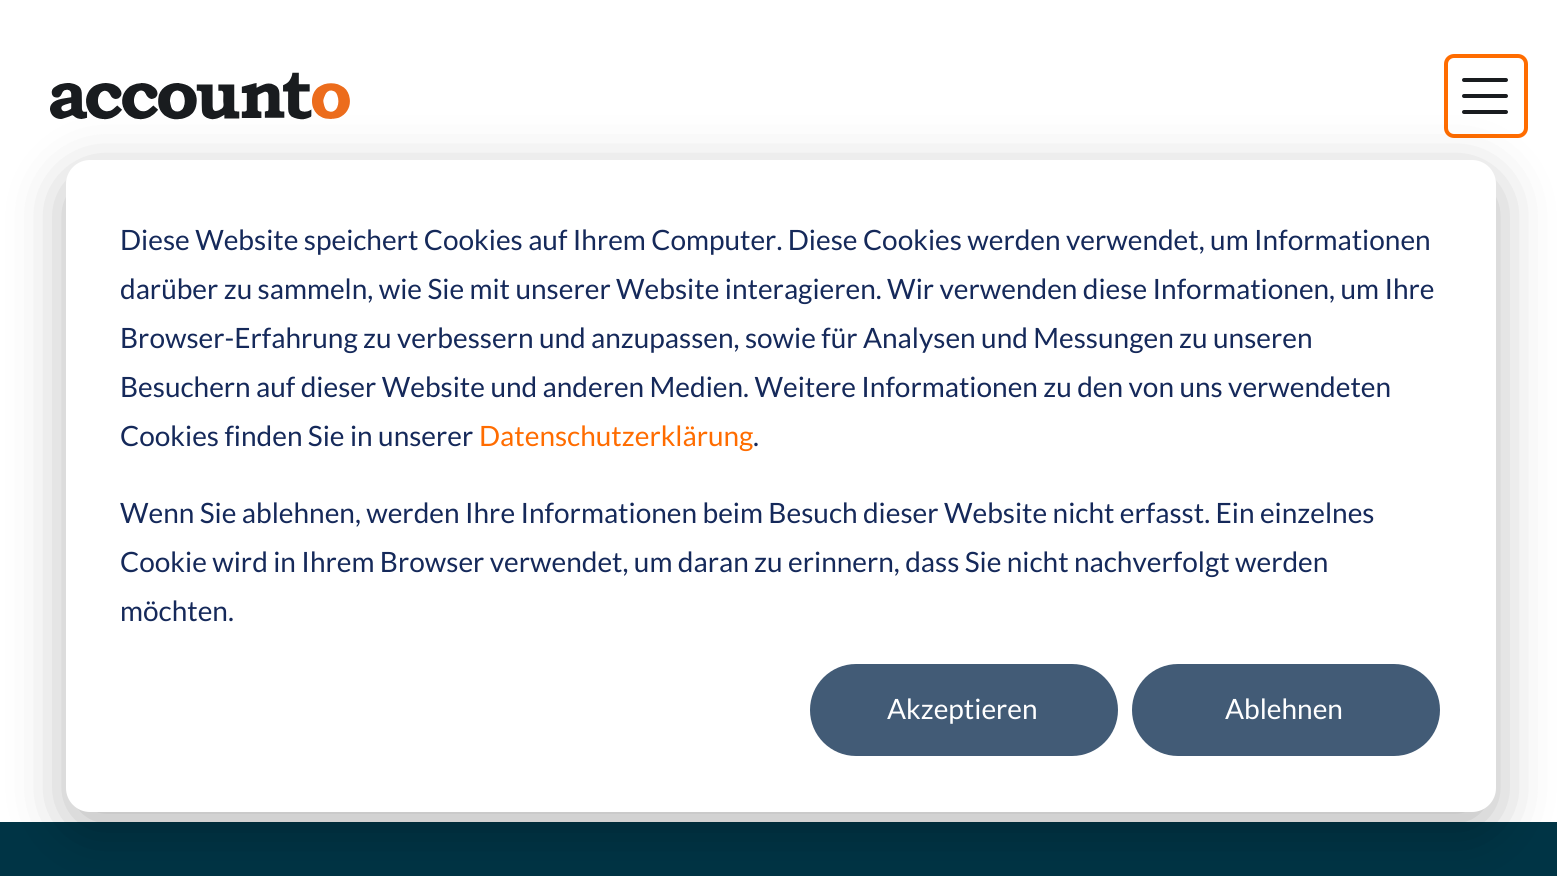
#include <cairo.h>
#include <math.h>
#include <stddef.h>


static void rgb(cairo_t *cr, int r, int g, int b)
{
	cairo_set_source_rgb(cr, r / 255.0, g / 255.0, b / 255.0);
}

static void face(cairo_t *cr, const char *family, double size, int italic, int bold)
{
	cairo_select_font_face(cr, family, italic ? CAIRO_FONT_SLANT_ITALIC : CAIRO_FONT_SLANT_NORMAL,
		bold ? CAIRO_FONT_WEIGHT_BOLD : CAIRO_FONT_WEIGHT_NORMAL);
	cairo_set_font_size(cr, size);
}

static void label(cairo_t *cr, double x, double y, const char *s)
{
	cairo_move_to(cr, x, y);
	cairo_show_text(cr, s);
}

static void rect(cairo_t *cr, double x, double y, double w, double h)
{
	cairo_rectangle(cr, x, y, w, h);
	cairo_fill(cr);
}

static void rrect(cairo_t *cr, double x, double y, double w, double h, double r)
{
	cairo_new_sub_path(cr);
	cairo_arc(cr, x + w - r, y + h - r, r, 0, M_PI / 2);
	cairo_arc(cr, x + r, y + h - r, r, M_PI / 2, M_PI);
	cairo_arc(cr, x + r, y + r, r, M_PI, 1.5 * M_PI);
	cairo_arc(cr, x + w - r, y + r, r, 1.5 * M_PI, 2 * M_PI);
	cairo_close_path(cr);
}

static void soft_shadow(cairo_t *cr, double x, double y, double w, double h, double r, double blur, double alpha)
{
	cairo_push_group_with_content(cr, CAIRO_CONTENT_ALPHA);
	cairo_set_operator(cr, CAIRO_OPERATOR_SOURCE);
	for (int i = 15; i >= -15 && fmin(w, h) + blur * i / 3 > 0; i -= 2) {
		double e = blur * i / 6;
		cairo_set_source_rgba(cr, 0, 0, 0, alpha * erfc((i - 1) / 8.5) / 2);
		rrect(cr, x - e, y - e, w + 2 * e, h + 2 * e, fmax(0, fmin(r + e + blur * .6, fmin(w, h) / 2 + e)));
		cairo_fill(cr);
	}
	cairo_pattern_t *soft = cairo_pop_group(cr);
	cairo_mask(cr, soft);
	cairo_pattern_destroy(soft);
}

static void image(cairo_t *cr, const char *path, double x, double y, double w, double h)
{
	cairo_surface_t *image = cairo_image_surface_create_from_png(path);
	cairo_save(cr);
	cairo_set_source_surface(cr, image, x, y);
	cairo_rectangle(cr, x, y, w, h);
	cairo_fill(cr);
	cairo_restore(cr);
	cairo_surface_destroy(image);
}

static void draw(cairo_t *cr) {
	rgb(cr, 255, 255, 255);
	cairo_paint(cr);
	image(cr, "image0.png", 50, 72, 300, 48);
	rrect(cr, 1446, 56, 80, 80, 8);
	rgb(cr, 255, 108, 0);
	cairo_set_line_width(cr, 4);
	cairo_stroke(cr);
	rgb(cr, 25, 28, 31);
	rrect(cr, 1462, 94, 46, 4, 2);
	cairo_fill(cr);
	rrect(cr, 1462, 78, 46, 4, 2);
	cairo_fill(cr);
	rrect(cr, 1462, 110, 46, 4, 2);
	cairo_fill(cr);
	rgb(cr, 0, 52, 69);
	rect(cr, 0, 822, 1557, 54);
	rgb(cr, 0, 0, 0);
	soft_shadow(cr, 66, 176, 1430, 652, 24, 28, 0.28);
	rgb(cr, 255, 255, 255);
	rrect(cr, 66, 160, 1430, 652, 24);
	cairo_fill(cr);
	face(cr, "Lato", 28, 0, 0);
	rgb(cr, 21, 41, 90);
	label(cr, 120, 250, "Diese Website speichert Cookies auf Ihrem Computer. Diese Cookies werden verwendet, um Informationen");
	label(cr, 120, 299, "darüber zu sammeln, wie Sie mit unserer Website interagieren. Wir verwenden diese Informationen, um Ihre");
	label(cr, 120, 348, "Browser-Erfahrung zu verbessern und anzupassen, sowie für Analysen und Messungen zu unseren");
	label(cr, 120, 397, "Besuchern auf dieser Website und anderen Medien. Weitere Informationen zu den von uns verwendeten");
	label(cr, 120, 446, "Cookies finden Sie in unserer");
	rgb(cr, 255, 108, 0);
	label(cr, 479, 446, "Datenschutzerklärung");
	rgb(cr, 21, 41, 90);
	label(cr, 753, 446, ".");
	label(cr, 120, 523, "Wenn Sie ablehnen, werden Ihre Informationen beim Besuch dieser Website nicht erfasst. Ein einzelnes");
	label(cr, 120, 572, "Cookie wird in Ihrem Browser verwendet, um daran zu erinnern, dass Sie nicht nachverfolgt werden");
	label(cr, 120, 621, "möchten.");
	rgb(cr, 66, 91, 118);
	rrect(cr, 811, 665, 306, 90, 45);
	cairo_fill_preserve(cr);
	cairo_set_line_width(cr, 2);
	cairo_stroke(cr);
	rgb(cr, 255, 255, 255);
	label(cr, 887, 719, "Akzeptieren");
	rgb(cr, 66, 91, 118);
	rrect(cr, 1133, 665, 306, 90, 45);
	cairo_fill_preserve(cr);
	cairo_stroke(cr);
	rgb(cr, 255, 255, 255);
	label(cr, 1225, 719, "Ablehnen");
}

int main(void) {
	cairo_surface_t *surface = cairo_image_surface_create(CAIRO_FORMAT_RGB24, 1557, 876);
	cairo_t *cr = cairo_create(surface);
	cairo_font_options_t *options = cairo_font_options_create();
	cairo_font_options_set_hint_metrics(options, CAIRO_HINT_METRICS_OFF);
	cairo_font_options_set_hint_style(options, CAIRO_HINT_STYLE_NONE);
	cairo_set_font_options(cr, options);
	cairo_set_miter_limit(cr, 4);
	draw(cr);
	cairo_surface_write_to_png(surface, "render.png");
	cairo_font_options_destroy(options);
	cairo_destroy(cr);
	cairo_surface_destroy(surface);
	return 0;
}
